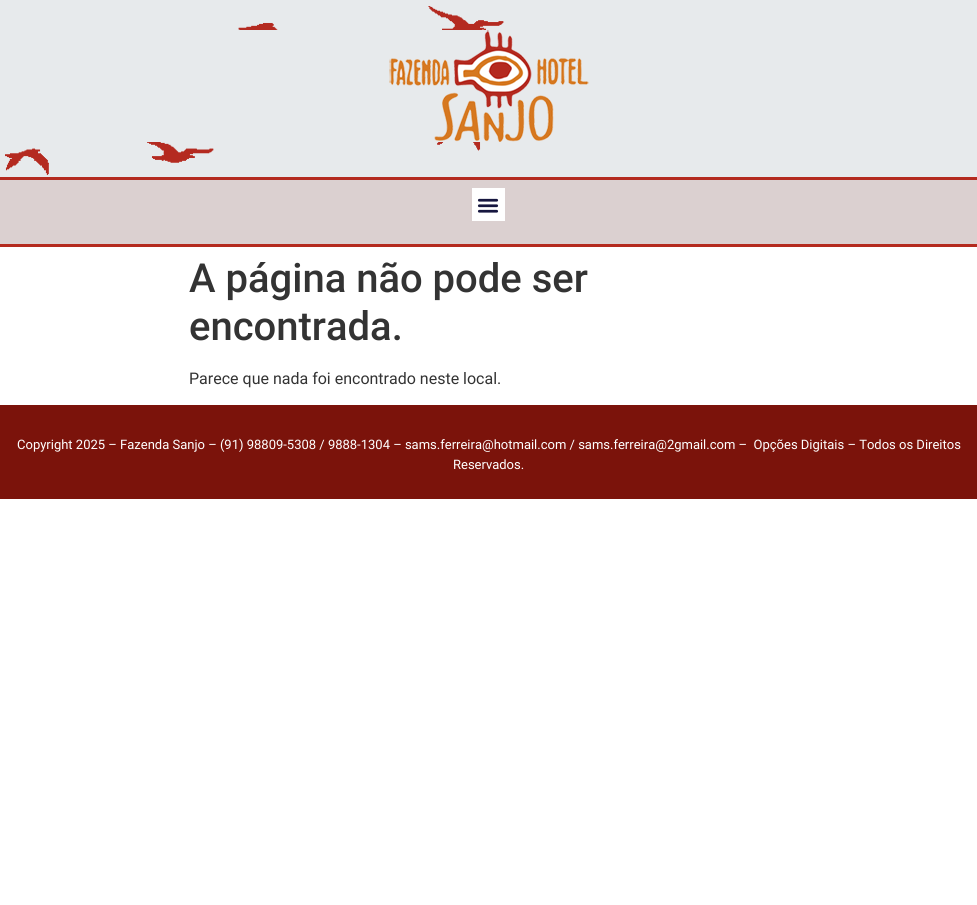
#include <cairo.h>
#include <math.h>
#include <stddef.h>


static void rgb(cairo_t *cr, int r, int g, int b)
{
	cairo_set_source_rgb(cr, r / 255.0, g / 255.0, b / 255.0);
}

static void face(cairo_t *cr, const char *family, double size, int italic, int bold)
{
	cairo_select_font_face(cr, family, italic ? CAIRO_FONT_SLANT_ITALIC : CAIRO_FONT_SLANT_NORMAL,
		bold ? CAIRO_FONT_WEIGHT_BOLD : CAIRO_FONT_WEIGHT_NORMAL);
	cairo_set_font_size(cr, size);
}

static void label(cairo_t *cr, double x, double y, const char *s)
{
	cairo_move_to(cr, x, y);
	cairo_show_text(cr, s);
}

static void rect(cairo_t *cr, double x, double y, double w, double h)
{
	cairo_rectangle(cr, x, y, w, h);
	cairo_fill(cr);
}

static void image(cairo_t *cr, const char *path, double x, double y, double w, double h)
{
	cairo_surface_t *image = cairo_image_surface_create_from_png(path);
	cairo_save(cr);
	cairo_set_source_surface(cr, image, x, y);
	cairo_rectangle(cr, x, y, w, h);
	cairo_fill(cr);
	cairo_restore(cr);
	cairo_surface_destroy(image);
}

static void draw(cairo_t *cr) {
	rgb(cr, 255, 255, 255);
	cairo_paint(cr);
	rgb(cr, 231, 234, 236);
	rect(cr, 0, 0, 977, 177);
	image(cr, "image0.png", 5, 6, 499, 169);
	rect(cr, 138, 30, 366, 112);
	image(cr, "image1.png", 389, 30, 200, 112);
	rgb(cr, 180, 42, 31);
	rect(cr, 0, 177, 977, 3);
	rect(cr, 0, 244, 977, 3);
	rgb(cr, 219, 208, 208);
	rect(cr, 0, 180, 977, 64);
	rgb(cr, 255, 255, 255);
	rect(cr, 472, 188, 33, 33);
	image(cr, "image2.png", 477, 198, 22, 15);
	face(cr, "Roboto Medium", 40, 0, 0);
	rgb(cr, 51, 51, 51);
	label(cr, 189, 292, "A página não pode ser");
	label(cr, 189, 340, "encontrada.");
	face(cr, "Roboto", 16, 0, 0);
	label(cr, 189, 384, "Parece que nada foi encontrado neste local.");
	rgb(cr, 123, 19, 11);
	rect(cr, 0, 405, 977, 94);
	face(cr, "Roboto", 13, 0, 0);
	rgb(cr, 255, 255, 255);
	label(cr, 17, 449, "Copyright 2025 – Fazenda Sanjo – (91) 98809-5308 / 9888-1304 – sams.ferreira@hotmail.com / sams.ferreira@2gmail.com –  Opções Digitais – Todos os Direitos");
	label(cr, 453, 469, "Reservados.");
}

int main(void) {
	cairo_surface_t *surface = cairo_image_surface_create(CAIRO_FORMAT_RGB24, 977, 905);
	cairo_t *cr = cairo_create(surface);
	cairo_font_options_t *options = cairo_font_options_create();
	cairo_font_options_set_hint_metrics(options, CAIRO_HINT_METRICS_OFF);
	cairo_font_options_set_hint_style(options, CAIRO_HINT_STYLE_NONE);
	cairo_set_font_options(cr, options);
	cairo_set_miter_limit(cr, 4);
	draw(cr);
	cairo_surface_write_to_png(surface, "render.png");
	cairo_font_options_destroy(options);
	cairo_destroy(cr);
	cairo_surface_destroy(surface);
	return 0;
}
